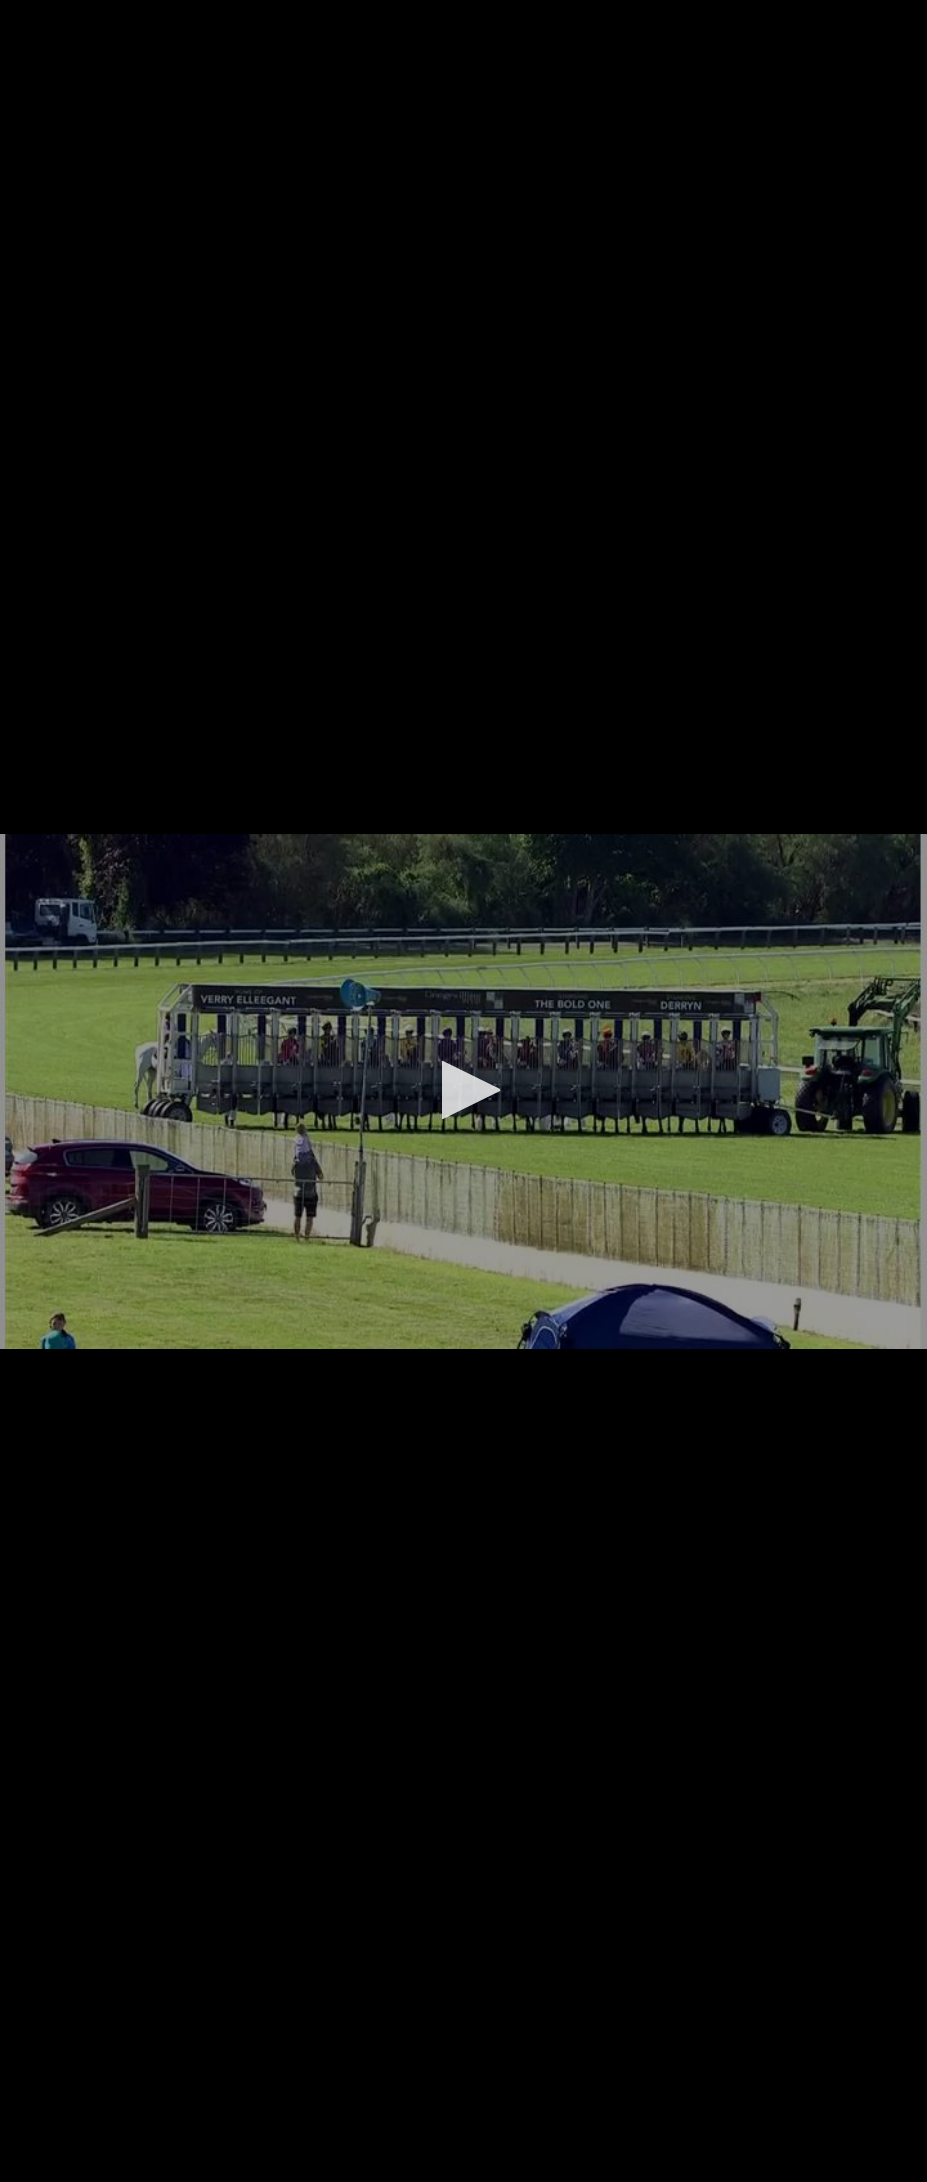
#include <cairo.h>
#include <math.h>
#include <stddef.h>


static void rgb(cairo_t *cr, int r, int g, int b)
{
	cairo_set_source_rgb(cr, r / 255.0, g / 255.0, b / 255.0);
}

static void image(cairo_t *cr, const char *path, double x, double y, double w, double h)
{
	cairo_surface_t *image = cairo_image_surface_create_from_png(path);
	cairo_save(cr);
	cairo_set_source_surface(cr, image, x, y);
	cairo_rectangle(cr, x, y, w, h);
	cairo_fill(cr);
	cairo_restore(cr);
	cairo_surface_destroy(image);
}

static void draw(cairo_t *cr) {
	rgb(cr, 0, 0, 0);
	cairo_paint(cr);
	image(cr, "image0.png", 0, 834, 927, 515);
	cairo_set_source_rgba(cr, 1, 1, 1, 0.8);
	cairo_new_path(cr);
	cairo_move_to(cr, 443, 1119);
	cairo_line_to(cr, 442, 1119);
	cairo_line_to(cr, 442, 1061);
	cairo_line_to(cr, 443, 1061);
	cairo_line_to(cr, 500, 1089);
	cairo_curve_to(cr, 500, 1090, 501, 1090, 500, 1091);
	cairo_close_path(cr);
	cairo_fill(cr);
}

int main(void) {
	cairo_surface_t *surface = cairo_image_surface_create(CAIRO_FORMAT_RGB24, 927, 2182);
	cairo_t *cr = cairo_create(surface);
	cairo_font_options_t *options = cairo_font_options_create();
	cairo_font_options_set_hint_metrics(options, CAIRO_HINT_METRICS_OFF);
	cairo_font_options_set_hint_style(options, CAIRO_HINT_STYLE_NONE);
	cairo_set_font_options(cr, options);
	cairo_set_miter_limit(cr, 4);
	draw(cr);
	cairo_surface_write_to_png(surface, "render.png");
	cairo_font_options_destroy(options);
	cairo_destroy(cr);
	cairo_surface_destroy(surface);
	return 0;
}
